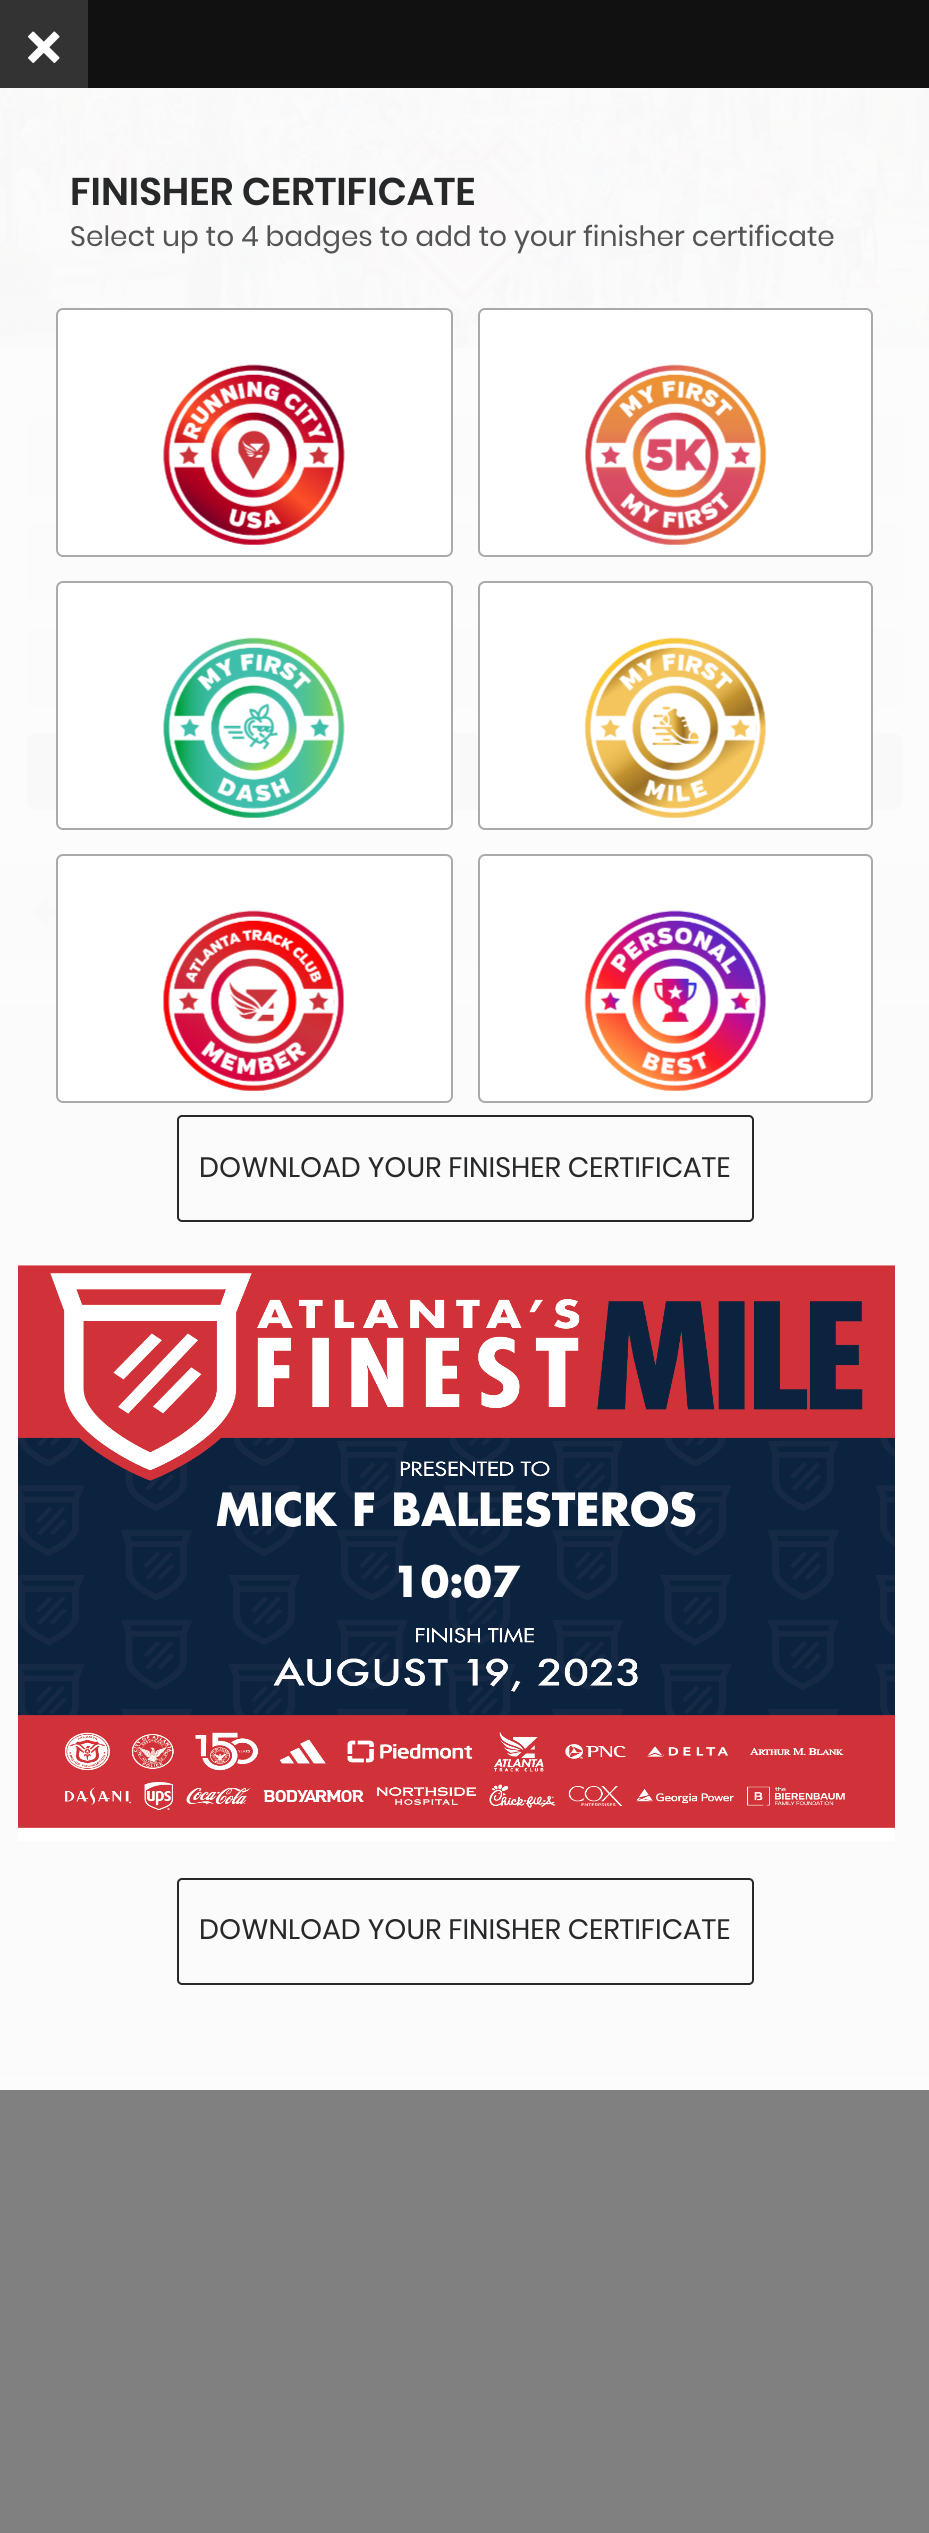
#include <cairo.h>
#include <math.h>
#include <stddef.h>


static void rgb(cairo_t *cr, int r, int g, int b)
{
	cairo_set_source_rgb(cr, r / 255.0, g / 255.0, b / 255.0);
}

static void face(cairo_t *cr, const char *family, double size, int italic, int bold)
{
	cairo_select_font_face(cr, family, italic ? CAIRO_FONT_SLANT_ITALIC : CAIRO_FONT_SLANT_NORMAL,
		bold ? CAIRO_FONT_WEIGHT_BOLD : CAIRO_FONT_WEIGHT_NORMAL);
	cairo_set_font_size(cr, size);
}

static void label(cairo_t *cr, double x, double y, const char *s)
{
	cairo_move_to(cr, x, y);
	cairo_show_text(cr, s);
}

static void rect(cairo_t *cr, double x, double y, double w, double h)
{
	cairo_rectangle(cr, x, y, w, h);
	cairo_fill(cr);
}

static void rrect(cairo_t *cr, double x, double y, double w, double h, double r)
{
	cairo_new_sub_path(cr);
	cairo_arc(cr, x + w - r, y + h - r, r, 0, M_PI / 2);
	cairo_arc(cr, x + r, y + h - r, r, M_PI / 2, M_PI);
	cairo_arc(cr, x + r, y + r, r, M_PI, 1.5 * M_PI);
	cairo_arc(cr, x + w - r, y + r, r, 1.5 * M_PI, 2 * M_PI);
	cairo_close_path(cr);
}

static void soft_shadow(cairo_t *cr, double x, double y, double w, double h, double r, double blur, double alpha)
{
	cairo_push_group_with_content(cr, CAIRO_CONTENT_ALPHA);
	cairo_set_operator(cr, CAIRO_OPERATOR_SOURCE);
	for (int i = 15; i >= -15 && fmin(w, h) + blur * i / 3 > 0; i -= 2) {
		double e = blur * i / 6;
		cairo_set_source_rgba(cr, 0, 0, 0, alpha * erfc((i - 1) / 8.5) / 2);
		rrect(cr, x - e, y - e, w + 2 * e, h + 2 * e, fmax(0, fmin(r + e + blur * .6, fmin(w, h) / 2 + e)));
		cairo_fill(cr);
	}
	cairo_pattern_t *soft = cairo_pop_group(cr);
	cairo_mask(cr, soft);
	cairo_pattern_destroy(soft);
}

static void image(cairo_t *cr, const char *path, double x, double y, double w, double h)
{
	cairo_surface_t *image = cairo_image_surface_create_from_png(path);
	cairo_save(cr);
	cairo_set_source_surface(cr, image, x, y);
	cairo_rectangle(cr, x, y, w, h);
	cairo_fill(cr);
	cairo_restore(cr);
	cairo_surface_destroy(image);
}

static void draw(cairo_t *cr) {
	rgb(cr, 128, 128, 128);
	cairo_paint(cr);
	image(cr, "image0.png", 0, 88, 929, 260);
	rgb(cr, 113, 113, 113);
	soft_shadow(cr, 11, 21, 908, 67, 0, 5, 1);
	rgb(cr, 17, 17, 17);
	rect(cr, 88, 0, 841, 88);
	rgb(cr, 51, 51, 51);
	rect(cr, 0, 0, 88, 88);
	image(cr, "image1.png", 28, 31, 32, 32);
	rgb(cr, 125, 125, 125);
	rect(cr, 0, 1005, 929, 1072);
	rgb(cr, 111, 111, 111);
	rect(cr, 0, 863, 929, 2);
	rgb(cr, 125, 125, 125);
	rrect(cr, 26, 418, 877, 79, 7);
	cairo_fill(cr);
	rgb(cr, 116, 116, 116);
	cairo_new_path(cr);
	cairo_move_to(cr, 33, 422);
	cairo_line_to(cr, 896, 422);
	cairo_curve_to(cr, 899, 422, 901, 424, 901, 427);
	cairo_line_to(cr, 901, 425);
	cairo_curve_to(cr, 901, 422, 899, 420, 896, 420);
	cairo_line_to(cr, 33, 420);
	cairo_curve_to(cr, 30, 420, 28, 422, 28, 425);
	cairo_line_to(cr, 28, 427);
	cairo_curve_to(cr, 28, 424, 30, 422, 33, 422);
	cairo_close_path(cr);
	cairo_fill(cr);
	rrect(cr, 27, 419, 875, 77, 6);
	rgb(cr, 102, 102, 102);
	cairo_stroke(cr);
	rgb(cr, 125, 125, 125);
	rrect(cr, 26, 523, 877, 79, 7);
	cairo_fill(cr);
	rgb(cr, 116, 116, 116);
	cairo_new_path(cr);
	cairo_move_to(cr, 33, 527);
	cairo_line_to(cr, 896, 527);
	cairo_curve_to(cr, 899, 527, 901, 529, 901, 532);
	cairo_line_to(cr, 901, 530);
	cairo_curve_to(cr, 901, 527, 899, 525, 896, 525);
	cairo_line_to(cr, 33, 525);
	cairo_curve_to(cr, 30, 525, 28, 527, 28, 530);
	cairo_line_to(cr, 28, 532);
	cairo_curve_to(cr, 28, 529, 30, 527, 33, 527);
	cairo_close_path(cr);
	cairo_fill(cr);
	rrect(cr, 27, 524, 875, 77, 6);
	rgb(cr, 102, 102, 102);
	cairo_stroke(cr);
	rgb(cr, 125, 125, 125);
	rrect(cr, 26, 628, 877, 79, 7);
	cairo_fill(cr);
	rgb(cr, 116, 116, 116);
	cairo_new_path(cr);
	cairo_move_to(cr, 33, 632);
	cairo_line_to(cr, 896, 632);
	cairo_curve_to(cr, 899, 632, 901, 634, 901, 637);
	cairo_line_to(cr, 901, 635);
	cairo_curve_to(cr, 901, 632, 899, 630, 896, 630);
	cairo_line_to(cr, 33, 630);
	cairo_curve_to(cr, 30, 630, 28, 632, 28, 635);
	cairo_line_to(cr, 28, 637);
	cairo_curve_to(cr, 28, 634, 30, 632, 33, 632);
	cairo_close_path(cr);
	cairo_fill(cr);
	rrect(cr, 27, 629, 875, 77, 6);
	rgb(cr, 102, 102, 102);
	cairo_stroke(cr);
	rgb(cr, 19, 20, 21);
	rrect(cr, 26, 733, 877, 77, 11);
	cairo_fill(cr);
	rgb(cr, 120, 120, 120);
	rect(cr, 0, 865, 929, 94);
	rgb(cr, 111, 111, 111);
	rect(cr, 0, 959, 929, 2);
	image(cr, "image9.png", 29, 897, 27, 30);
	cairo_set_source_rgba(cr, 1, 1, 1, 0.97);
	rect(cr, 0, 88, 929, 2002);
	face(cr, "Poppins SemiBold", 38.5, 0, 0);
	rgb(cr, 38, 40, 42);
	label(cr, 70, 205, "FINISHER CERTIFICATE");
	face(cr, "Poppins", 28, 0, 0);
	rgb(cr, 84, 84, 84);
	label(cr, 70, 246, "Select up to 4 badges to add to your finisher certificate");
	rgb(cr, 255, 255, 255);
	rrect(cr, 57, 309, 395, 247, 6);
	cairo_fill_preserve(cr);
	rgb(cr, 170, 170, 170);
	cairo_stroke(cr);
	image(cr, "image2.png", 163, 364, 182, 181);
	rgb(cr, 255, 255, 255);
	rrect(cr, 479, 309, 393, 247, 6);
	cairo_fill_preserve(cr);
	rgb(cr, 170, 170, 170);
	cairo_stroke(cr);
	image(cr, "image3.png", 585, 364, 182, 181);
	rgb(cr, 255, 255, 255);
	rrect(cr, 57, 582, 395, 247, 6);
	cairo_fill_preserve(cr);
	rgb(cr, 170, 170, 170);
	cairo_stroke(cr);
	image(cr, "image4.png", 163, 637, 182, 181);
	rgb(cr, 255, 255, 255);
	rrect(cr, 479, 582, 393, 247, 6);
	cairo_fill_preserve(cr);
	rgb(cr, 170, 170, 170);
	cairo_stroke(cr);
	image(cr, "image5.png", 584, 637, 182, 181);
	rgb(cr, 255, 255, 255);
	rrect(cr, 57, 855, 395, 247, 6);
	cairo_fill_preserve(cr);
	rgb(cr, 170, 170, 170);
	cairo_stroke(cr);
	image(cr, "image6.png", 163, 910, 181, 181);
	rgb(cr, 255, 255, 255);
	rrect(cr, 479, 855, 393, 247, 6);
	cairo_fill_preserve(cr);
	rgb(cr, 170, 170, 170);
	cairo_stroke(cr);
	image(cr, "image7.png", 584, 910, 182, 181);
	rrect(cr, 178, 1116, 575, 105, 4);
	rgb(cr, 38, 40, 42);
	cairo_stroke(cr);
	label(cr, 199, 1177, "DOWNLOAD YOUR FINISHER CERTIFICATE");
	image(cr, "image8.png", 18, 1265, 877, 576);
	rrect(cr, 178, 1879, 575, 105, 4);
	cairo_stroke(cr);
	label(cr, 199, 1939, "DOWNLOAD YOUR FINISHER CERTIFICATE");
}

int main(void) {
	cairo_surface_t *surface = cairo_image_surface_create(CAIRO_FORMAT_RGB24, 929, 2533);
	cairo_t *cr = cairo_create(surface);
	cairo_font_options_t *options = cairo_font_options_create();
	cairo_font_options_set_hint_metrics(options, CAIRO_HINT_METRICS_OFF);
	cairo_font_options_set_hint_style(options, CAIRO_HINT_STYLE_NONE);
	cairo_set_font_options(cr, options);
	cairo_set_miter_limit(cr, 4);
	draw(cr);
	cairo_surface_write_to_png(surface, "render.png");
	cairo_font_options_destroy(options);
	cairo_destroy(cr);
	cairo_surface_destroy(surface);
	return 0;
}
